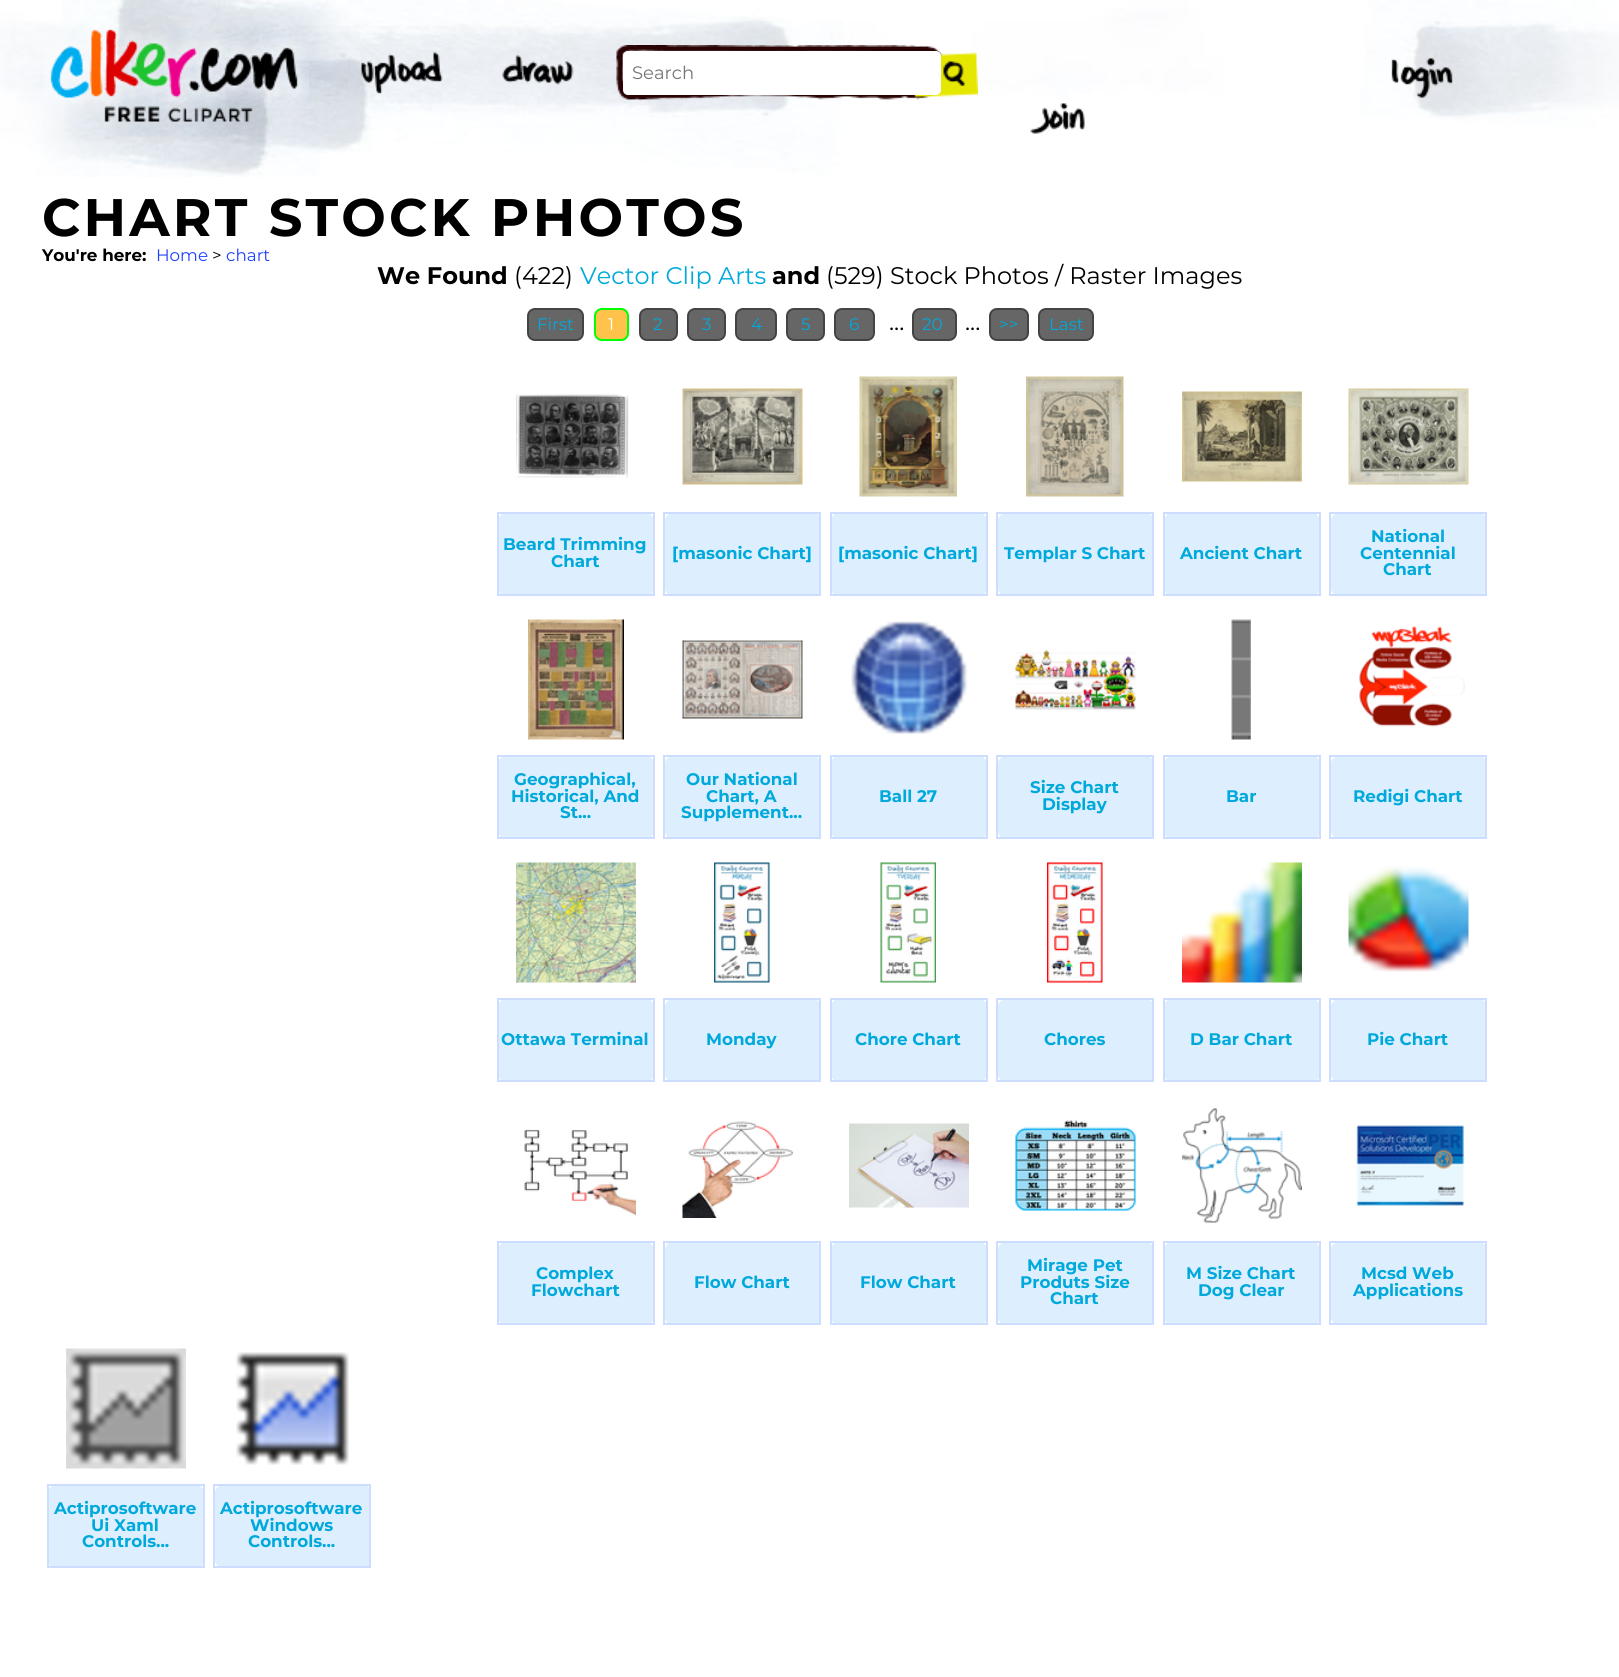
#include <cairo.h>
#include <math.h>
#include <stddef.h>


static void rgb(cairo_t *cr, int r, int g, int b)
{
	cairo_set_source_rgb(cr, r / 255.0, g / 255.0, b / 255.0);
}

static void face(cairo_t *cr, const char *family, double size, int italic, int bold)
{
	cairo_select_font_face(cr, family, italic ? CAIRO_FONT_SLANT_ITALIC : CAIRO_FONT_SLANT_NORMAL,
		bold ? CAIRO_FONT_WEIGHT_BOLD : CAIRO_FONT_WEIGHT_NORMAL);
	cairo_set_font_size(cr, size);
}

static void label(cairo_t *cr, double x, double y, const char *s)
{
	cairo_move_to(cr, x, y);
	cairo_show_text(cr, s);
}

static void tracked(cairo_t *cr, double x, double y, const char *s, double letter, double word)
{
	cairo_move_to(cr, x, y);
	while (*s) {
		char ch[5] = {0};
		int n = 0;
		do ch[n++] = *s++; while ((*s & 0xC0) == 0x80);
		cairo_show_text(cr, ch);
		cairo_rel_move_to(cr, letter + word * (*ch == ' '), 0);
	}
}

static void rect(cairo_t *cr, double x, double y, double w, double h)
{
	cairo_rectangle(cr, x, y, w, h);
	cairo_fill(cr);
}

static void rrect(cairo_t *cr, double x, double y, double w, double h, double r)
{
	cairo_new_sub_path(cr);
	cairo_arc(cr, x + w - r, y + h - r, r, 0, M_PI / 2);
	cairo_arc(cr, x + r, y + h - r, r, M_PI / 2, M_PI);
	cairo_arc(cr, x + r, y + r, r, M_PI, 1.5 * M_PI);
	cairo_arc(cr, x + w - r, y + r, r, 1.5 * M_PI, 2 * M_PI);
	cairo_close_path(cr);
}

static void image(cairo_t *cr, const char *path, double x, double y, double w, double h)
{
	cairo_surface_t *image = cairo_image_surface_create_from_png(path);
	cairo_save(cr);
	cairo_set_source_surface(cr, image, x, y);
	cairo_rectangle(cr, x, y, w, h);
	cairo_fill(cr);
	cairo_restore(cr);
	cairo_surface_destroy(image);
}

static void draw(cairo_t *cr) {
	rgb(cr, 255, 255, 255);
	cairo_paint(cr);
	image(cr, "image0.png", 0, 0, 1619, 177);
	image(cr, "image1.png", 43, 19, 266, 103);
	image(cr, "image2.png", 361, 52, 82, 42);
	image(cr, "image3.png", 502, 55, 72, 30);
	image(cr, "image4.png", 616, 45, 362, 56);
	rgb(cr, 255, 255, 255);
	rrect(cr, 623, 51, 318, 44, 5);
	cairo_fill(cr);
	face(cr, "Montserrat", 18, 0, 0);
	rgb(cr, 117, 117, 117);
	label(cr, 632, 79, "Search");
	image(cr, "image5.png", 1391, 58, 62, 40);
	image(cr, "image6.png", 1030, 103, 55, 31);
	face(cr, "Montserrat", 52.75, 0, 1);
	rgb(cr, 0, 0, 0);
	tracked(cr, 42, 236, "CHART STOCK PHOTOS", 3.2, 0);
	face(cr, "Montserrat", 16.75, 0, 1);
	label(cr, 42, 261, "You're here:");
	face(cr, "Montserrat", 16.75, 0, 0);
	rgb(cr, 32, 64, 255);
	label(cr, 156, 261, "Home");
	rgb(cr, 0, 0, 0);
	label(cr, 212, 261, ">");
	rgb(cr, 32, 64, 255);
	label(cr, 226, 261, "chart");
	face(cr, "Montserrat", 24, 0, 1);
	rgb(cr, 0, 0, 0);
	label(cr, 377, 284, "We Found");
	face(cr, "Montserrat", 24, 0, 0);
	label(cr, 514, 284, "(422)");
	rgb(cr, 0, 169, 219);
	label(cr, 580, 284, "Vector Clip Arts");
	face(cr, "Montserrat", 24, 0, 1);
	rgb(cr, 0, 0, 0);
	label(cr, 772, 284, "and");
	face(cr, "Montserrat", 24, 0, 0);
	label(cr, 826, 284, "(529) Stock Photos / Raster Images");
	rgb(cr, 102, 102, 102);
	rrect(cr, 528, 309, 55, 31, 7);
	cairo_fill_preserve(cr);
	rgb(cr, 68, 68, 68);
	cairo_stroke(cr);
	face(cr, "Montserrat", 16.75, 0, 0);
	rgb(cr, 0, 169, 219);
	label(cr, 537, 330, "First");
	rgb(cr, 255, 195, 76);
	rrect(cr, 595, 309, 33, 31, 7);
	cairo_fill_preserve(cr);
	rgb(cr, 0, 255, 0);
	cairo_stroke(cr);
	rgb(cr, 255, 255, 255);
	label(cr, 608, 330, "1");
	rgb(cr, 102, 102, 102);
	rrect(cr, 640, 309, 37, 31, 7);
	cairo_fill_preserve(cr);
	rgb(cr, 68, 68, 68);
	cairo_stroke(cr);
	rgb(cr, 0, 169, 219);
	label(cr, 653, 330, "2");
	rgb(cr, 102, 102, 102);
	rrect(cr, 688, 309, 37, 31, 7);
	cairo_fill_preserve(cr);
	rgb(cr, 68, 68, 68);
	cairo_stroke(cr);
	rgb(cr, 0, 169, 219);
	label(cr, 702, 330, "3");
	rgb(cr, 102, 102, 102);
	rrect(cr, 736, 309, 40, 31, 7);
	cairo_fill_preserve(cr);
	rgb(cr, 68, 68, 68);
	cairo_stroke(cr);
	rgb(cr, 0, 169, 219);
	label(cr, 751, 330, "4");
	rgb(cr, 102, 102, 102);
	rrect(cr, 787, 309, 37, 31, 7);
	cairo_fill_preserve(cr);
	rgb(cr, 68, 68, 68);
	cairo_stroke(cr);
	rgb(cr, 0, 169, 219);
	label(cr, 801, 330, "5");
	rgb(cr, 102, 102, 102);
	rrect(cr, 835, 309, 39, 31, 7);
	cairo_fill_preserve(cr);
	rgb(cr, 68, 68, 68);
	cairo_stroke(cr);
	rgb(cr, 0, 169, 219);
	label(cr, 849, 330, "6");
	rgb(cr, 102, 102, 102);
	rrect(cr, 913, 309, 43, 31, 7);
	cairo_fill_preserve(cr);
	rgb(cr, 68, 68, 68);
	cairo_stroke(cr);
	rgb(cr, 0, 169, 219);
	label(cr, 922, 330, "20");
	rgb(cr, 102, 102, 102);
	rrect(cr, 990, 309, 38, 31, 7);
	cairo_fill_preserve(cr);
	rgb(cr, 68, 68, 68);
	cairo_stroke(cr);
	rgb(cr, 0, 169, 219);
	label(cr, 999, 330, ">>");
	rgb(cr, 102, 102, 102);
	rrect(cr, 1039, 309, 54, 31, 7);
	cairo_fill_preserve(cr);
	rgb(cr, 68, 68, 68);
	cairo_stroke(cr);
	rgb(cr, 0, 169, 219);
	label(cr, 1049, 330, "Last");
	face(cr, "Montserrat", 24, 0, 0);
	rgb(cr, 0, 0, 0);
	label(cr, 889, 330, "...");
	label(cr, 965, 330, "...");
	image(cr, "image7.png", 516, 394, 113, 84);
	rgb(cr, 221, 238, 255);
	rrect(cr, 498, 513, 156, 83, 8);
	cairo_fill(cr);
	rgb(cr, 204, 221, 255);
	rect(cr, 497, 512, 157, 2);
	rect(cr, 653, 512, 2, 84);
	rect(cr, 497, 594, 157, 2);
	rect(cr, 497, 512, 2, 84);
	face(cr, "Montserrat", 16.75, 0, 1);
	rgb(cr, 0, 169, 219);
	label(cr, 503, 550, "Beard Trimming");
	label(cr, 551, 567, "Chart");
	image(cr, "image8.png", 682, 388, 121, 97);
	rgb(cr, 221, 238, 255);
	rrect(cr, 665, 513, 156, 83, 8);
	cairo_fill(cr);
	rgb(cr, 204, 221, 255);
	rect(cr, 663, 512, 158, 2);
	rect(cr, 819, 512, 2, 84);
	rect(cr, 663, 594, 158, 2);
	rect(cr, 663, 512, 2, 84);
	rgb(cr, 0, 169, 219);
	label(cr, 672, 559, "[masonic Chart]");
	image(cr, "image9.png", 859, 376, 98, 121);
	rgb(cr, 221, 238, 255);
	rrect(cr, 831, 513, 156, 83, 8);
	cairo_fill(cr);
	rgb(cr, 204, 221, 255);
	rect(cr, 830, 512, 157, 2);
	rect(cr, 986, 512, 2, 84);
	rect(cr, 830, 594, 157, 2);
	rect(cr, 830, 512, 2, 84);
	rgb(cr, 0, 169, 219);
	label(cr, 838, 559, "[masonic Chart]");
	image(cr, "image10.png", 1026, 376, 98, 121);
	rgb(cr, 221, 238, 255);
	rrect(cr, 998, 513, 156, 83, 8);
	cairo_fill(cr);
	rgb(cr, 204, 221, 255);
	rect(cr, 996, 512, 158, 2);
	rect(cr, 1152, 512, 2, 84);
	rect(cr, 996, 594, 158, 2);
	rect(cr, 996, 512, 2, 84);
	rgb(cr, 0, 169, 219);
	label(cr, 1004, 559, "Templar S Chart");
	image(cr, "image11.png", 1182, 391, 120, 91);
	rgb(cr, 221, 238, 255);
	rrect(cr, 1164, 513, 156, 83, 8);
	cairo_fill(cr);
	rgb(cr, 204, 221, 255);
	rect(cr, 1163, 512, 157, 2);
	rect(cr, 1319, 512, 2, 84);
	rect(cr, 1163, 594, 157, 2);
	rect(cr, 1163, 512, 2, 84);
	rgb(cr, 0, 169, 219);
	label(cr, 1180, 559, "Ancient Chart");
	image(cr, "image12.png", 1348, 388, 121, 97);
	rgb(cr, 221, 238, 255);
	rrect(cr, 1331, 513, 156, 83, 8);
	cairo_fill(cr);
	rgb(cr, 204, 221, 255);
	rect(cr, 1329, 512, 158, 2);
	rect(cr, 1485, 512, 2, 84);
	rect(cr, 1329, 594, 158, 2);
	rect(cr, 1329, 512, 2, 84);
	rgb(cr, 0, 169, 219);
	label(cr, 1371, 542, "National");
	label(cr, 1360, 559, "Centennial");
	label(cr, 1383, 575, "Chart");
	image(cr, "image13.png", 528, 619, 96, 121);
	rgb(cr, 221, 238, 255);
	rrect(cr, 498, 756, 156, 83, 8);
	cairo_fill(cr);
	rgb(cr, 204, 221, 255);
	rect(cr, 497, 755, 157, 2);
	rect(cr, 653, 755, 2, 84);
	rect(cr, 497, 837, 157, 2);
	rect(cr, 497, 755, 2, 84);
	rgb(cr, 0, 169, 219);
	label(cr, 514, 785, "Geographical,");
	label(cr, 511, 802, "Historical, And");
	label(cr, 560, 818, "St...");
	image(cr, "image14.png", 682, 640, 121, 79);
	rgb(cr, 221, 238, 255);
	rrect(cr, 665, 756, 156, 83, 8);
	cairo_fill(cr);
	rgb(cr, 204, 221, 255);
	rect(cr, 663, 755, 158, 2);
	rect(cr, 819, 755, 2, 84);
	rect(cr, 663, 837, 158, 2);
	rect(cr, 663, 755, 2, 84);
	rgb(cr, 0, 169, 219);
	label(cr, 686, 785, "Our National");
	label(cr, 706, 802, "Chart, A");
	label(cr, 681, 818, "Supplement...");
	image(cr, "image15.png", 851, 621, 117, 113);
	rgb(cr, 221, 238, 255);
	rrect(cr, 831, 756, 156, 83, 8);
	cairo_fill(cr);
	rgb(cr, 204, 221, 255);
	rect(cr, 830, 755, 157, 2);
	rect(cr, 986, 755, 2, 84);
	rect(cr, 830, 837, 157, 2);
	rect(cr, 830, 755, 2, 84);
	rgb(cr, 0, 169, 219);
	label(cr, 879, 802, "Ball 27");
	image(cr, "image16.png", 1015, 649, 121, 61);
	rgb(cr, 221, 238, 255);
	rrect(cr, 998, 756, 156, 83, 8);
	cairo_fill(cr);
	rgb(cr, 204, 221, 255);
	rect(cr, 996, 755, 158, 2);
	rect(cr, 1152, 755, 2, 84);
	rect(cr, 996, 837, 158, 2);
	rect(cr, 996, 755, 2, 84);
	rgb(cr, 0, 169, 219);
	label(cr, 1030, 793, "Size Chart");
	label(cr, 1042, 810, "Display");
	image(cr, "image17.png", 1231, 619, 20, 121);
	rgb(cr, 221, 238, 255);
	rrect(cr, 1164, 756, 156, 83, 8);
	cairo_fill(cr);
	rgb(cr, 204, 221, 255);
	rect(cr, 1163, 755, 157, 2);
	rect(cr, 1319, 755, 2, 84);
	rect(cr, 1163, 837, 157, 2);
	rect(cr, 1163, 755, 2, 84);
	rgb(cr, 0, 169, 219);
	label(cr, 1226, 802, "Bar");
	image(cr, "image18.png", 1359, 626, 107, 101);
	rgb(cr, 221, 238, 255);
	rrect(cr, 1331, 756, 156, 83, 8);
	cairo_fill(cr);
	rgb(cr, 204, 221, 255);
	rect(cr, 1329, 755, 158, 2);
	rect(cr, 1485, 755, 2, 84);
	rect(cr, 1329, 837, 158, 2);
	rect(cr, 1329, 755, 2, 84);
	rgb(cr, 0, 169, 219);
	label(cr, 1353, 802, "Redigi Chart");
	image(cr, "image19.png", 516, 862, 120, 121);
	rgb(cr, 221, 238, 255);
	rrect(cr, 498, 999, 156, 83, 8);
	cairo_fill(cr);
	rgb(cr, 204, 221, 255);
	rect(cr, 497, 998, 157, 2);
	rect(cr, 653, 998, 2, 84);
	rect(cr, 497, 1080, 157, 2);
	rect(cr, 497, 998, 2, 84);
	rgb(cr, 0, 169, 219);
	label(cr, 501, 1045, "Ottawa Terminal");
	image(cr, "image20.png", 714, 862, 56, 121);
	rgb(cr, 221, 238, 255);
	rrect(cr, 665, 999, 156, 83, 8);
	cairo_fill(cr);
	rgb(cr, 204, 221, 255);
	rect(cr, 663, 998, 158, 2);
	rect(cr, 819, 998, 2, 84);
	rect(cr, 663, 1080, 158, 2);
	rect(cr, 663, 998, 2, 84);
	rgb(cr, 0, 169, 219);
	label(cr, 706, 1045, "Monday");
	image(cr, "image21.png", 880, 862, 56, 121);
	rgb(cr, 221, 238, 255);
	rrect(cr, 831, 999, 156, 83, 8);
	cairo_fill(cr);
	rgb(cr, 204, 221, 255);
	rect(cr, 830, 998, 157, 2);
	rect(cr, 986, 998, 2, 84);
	rect(cr, 830, 1080, 157, 2);
	rect(cr, 830, 998, 2, 84);
	rgb(cr, 0, 169, 219);
	label(cr, 855, 1045, "Chore Chart");
	image(cr, "image22.png", 1047, 862, 56, 121);
	rgb(cr, 221, 238, 255);
	rrect(cr, 998, 999, 156, 83, 8);
	cairo_fill(cr);
	rgb(cr, 204, 221, 255);
	rect(cr, 996, 998, 158, 2);
	rect(cr, 1152, 998, 2, 84);
	rect(cr, 996, 1080, 158, 2);
	rect(cr, 996, 998, 2, 84);
	rgb(cr, 0, 169, 219);
	label(cr, 1044, 1045, "Chores");
	image(cr, "image23.png", 1182, 862, 120, 121);
	rgb(cr, 221, 238, 255);
	rrect(cr, 1164, 999, 156, 83, 8);
	cairo_fill(cr);
	rgb(cr, 204, 221, 255);
	rect(cr, 1163, 998, 157, 2);
	rect(cr, 1319, 998, 2, 84);
	rect(cr, 1163, 1080, 157, 2);
	rect(cr, 1163, 998, 2, 84);
	rgb(cr, 0, 169, 219);
	label(cr, 1190, 1045, "D Bar Chart");
	image(cr, "image24.png", 1348, 866, 121, 106);
	rgb(cr, 221, 238, 255);
	rrect(cr, 1331, 999, 156, 83, 8);
	cairo_fill(cr);
	rgb(cr, 204, 221, 255);
	rect(cr, 1329, 998, 158, 2);
	rect(cr, 1485, 998, 2, 84);
	rect(cr, 1329, 1080, 158, 2);
	rect(cr, 1329, 998, 2, 84);
	rgb(cr, 0, 169, 219);
	label(cr, 1367, 1045, "Pie Chart");
	image(cr, "image25.png", 524, 1129, 112, 87);
	rgb(cr, 221, 238, 255);
	rrect(cr, 498, 1242, 156, 83, 8);
	cairo_fill(cr);
	rgb(cr, 204, 221, 255);
	rect(cr, 497, 1241, 157, 2);
	rect(cr, 653, 1241, 2, 84);
	rect(cr, 497, 1323, 157, 2);
	rect(cr, 497, 1241, 2, 84);
	rgb(cr, 0, 169, 219);
	label(cr, 536, 1279, "Complex");
	label(cr, 531, 1296, "Flowchart");
	image(cr, "image26.png", 682, 1121, 112, 97);
	rgb(cr, 221, 238, 255);
	rrect(cr, 665, 1242, 156, 83, 8);
	cairo_fill(cr);
	rgb(cr, 204, 221, 255);
	rect(cr, 663, 1241, 158, 2);
	rect(cr, 819, 1241, 2, 84);
	rect(cr, 663, 1323, 158, 2);
	rect(cr, 663, 1241, 2, 84);
	rgb(cr, 0, 169, 219);
	label(cr, 694, 1288, "Flow Chart");
	image(cr, "image27.png", 849, 1123, 120, 85);
	rgb(cr, 221, 238, 255);
	rrect(cr, 831, 1242, 156, 83, 8);
	cairo_fill(cr);
	rgb(cr, 204, 221, 255);
	rect(cr, 830, 1241, 157, 2);
	rect(cr, 986, 1241, 2, 84);
	rect(cr, 830, 1323, 157, 2);
	rect(cr, 830, 1241, 2, 84);
	rgb(cr, 0, 169, 219);
	label(cr, 860, 1288, "Flow Chart");
	image(cr, "image28.png", 1015, 1120, 121, 91);
	rgb(cr, 221, 238, 255);
	rrect(cr, 998, 1242, 156, 83, 8);
	cairo_fill(cr);
	rgb(cr, 204, 221, 255);
	rect(cr, 996, 1241, 158, 2);
	rect(cr, 1152, 1241, 2, 84);
	rect(cr, 996, 1323, 158, 2);
	rect(cr, 996, 1241, 2, 84);
	rgb(cr, 0, 169, 219);
	label(cr, 1027, 1271, "Mirage Pet");
	label(cr, 1020, 1288, "Produts Size");
	label(cr, 1050, 1304, "Chart");
	image(cr, "image29.png", 1182, 1108, 120, 115);
	rgb(cr, 221, 238, 255);
	rrect(cr, 1164, 1242, 156, 83, 8);
	cairo_fill(cr);
	rgb(cr, 204, 221, 255);
	rect(cr, 1163, 1241, 157, 2);
	rect(cr, 1319, 1241, 2, 84);
	rect(cr, 1163, 1323, 157, 2);
	rect(cr, 1163, 1241, 2, 84);
	rgb(cr, 0, 169, 219);
	label(cr, 1186, 1279, "M Size Chart");
	label(cr, 1198, 1296, "Dog Clear");
	image(cr, "image30.png", 1356, 1125, 108, 81);
	rgb(cr, 221, 238, 255);
	rrect(cr, 1331, 1242, 156, 83, 8);
	cairo_fill(cr);
	rgb(cr, 204, 221, 255);
	rect(cr, 1329, 1241, 158, 2);
	rect(cr, 1485, 1241, 2, 84);
	rect(cr, 1329, 1323, 158, 2);
	rect(cr, 1329, 1241, 2, 84);
	rgb(cr, 0, 169, 219);
	label(cr, 1361, 1279, "Mcsd Web");
	label(cr, 1353, 1296, "Applications");
	image(cr, "image31.png", 66, 1348, 120, 121);
	rgb(cr, 221, 238, 255);
	rrect(cr, 48, 1485, 156, 83, 8);
	cairo_fill(cr);
	rgb(cr, 204, 221, 255);
	rect(cr, 47, 1484, 157, 2);
	rect(cr, 203, 1484, 2, 84);
	rect(cr, 47, 1566, 157, 2);
	rect(cr, 47, 1484, 2, 84);
	rgb(cr, 0, 169, 219);
	label(cr, 54, 1514, "Actiprosoftware");
	label(cr, 91, 1531, "Ui Xaml");
	label(cr, 82, 1547, "Controls...");
	image(cr, "image32.png", 236, 1352, 113, 113);
	rgb(cr, 221, 238, 255);
	rrect(cr, 215, 1485, 156, 83, 8);
	cairo_fill(cr);
	rgb(cr, 204, 221, 255);
	rect(cr, 213, 1484, 158, 2);
	rect(cr, 369, 1484, 2, 84);
	rect(cr, 213, 1566, 158, 2);
	rect(cr, 213, 1484, 2, 84);
	rgb(cr, 0, 169, 219);
	label(cr, 220, 1514, "Actiprosoftware");
	label(cr, 250, 1531, "Windows");
	label(cr, 248, 1547, "Controls...");
}

int main(void) {
	cairo_surface_t *surface = cairo_image_surface_create(CAIRO_FORMAT_RGB24, 1619, 1677);
	cairo_t *cr = cairo_create(surface);
	cairo_font_options_t *options = cairo_font_options_create();
	cairo_font_options_set_hint_metrics(options, CAIRO_HINT_METRICS_OFF);
	cairo_font_options_set_hint_style(options, CAIRO_HINT_STYLE_NONE);
	cairo_set_font_options(cr, options);
	cairo_set_miter_limit(cr, 4);
	draw(cr);
	cairo_surface_write_to_png(surface, "render.png");
	cairo_font_options_destroy(options);
	cairo_destroy(cr);
	cairo_surface_destroy(surface);
	return 0;
}
